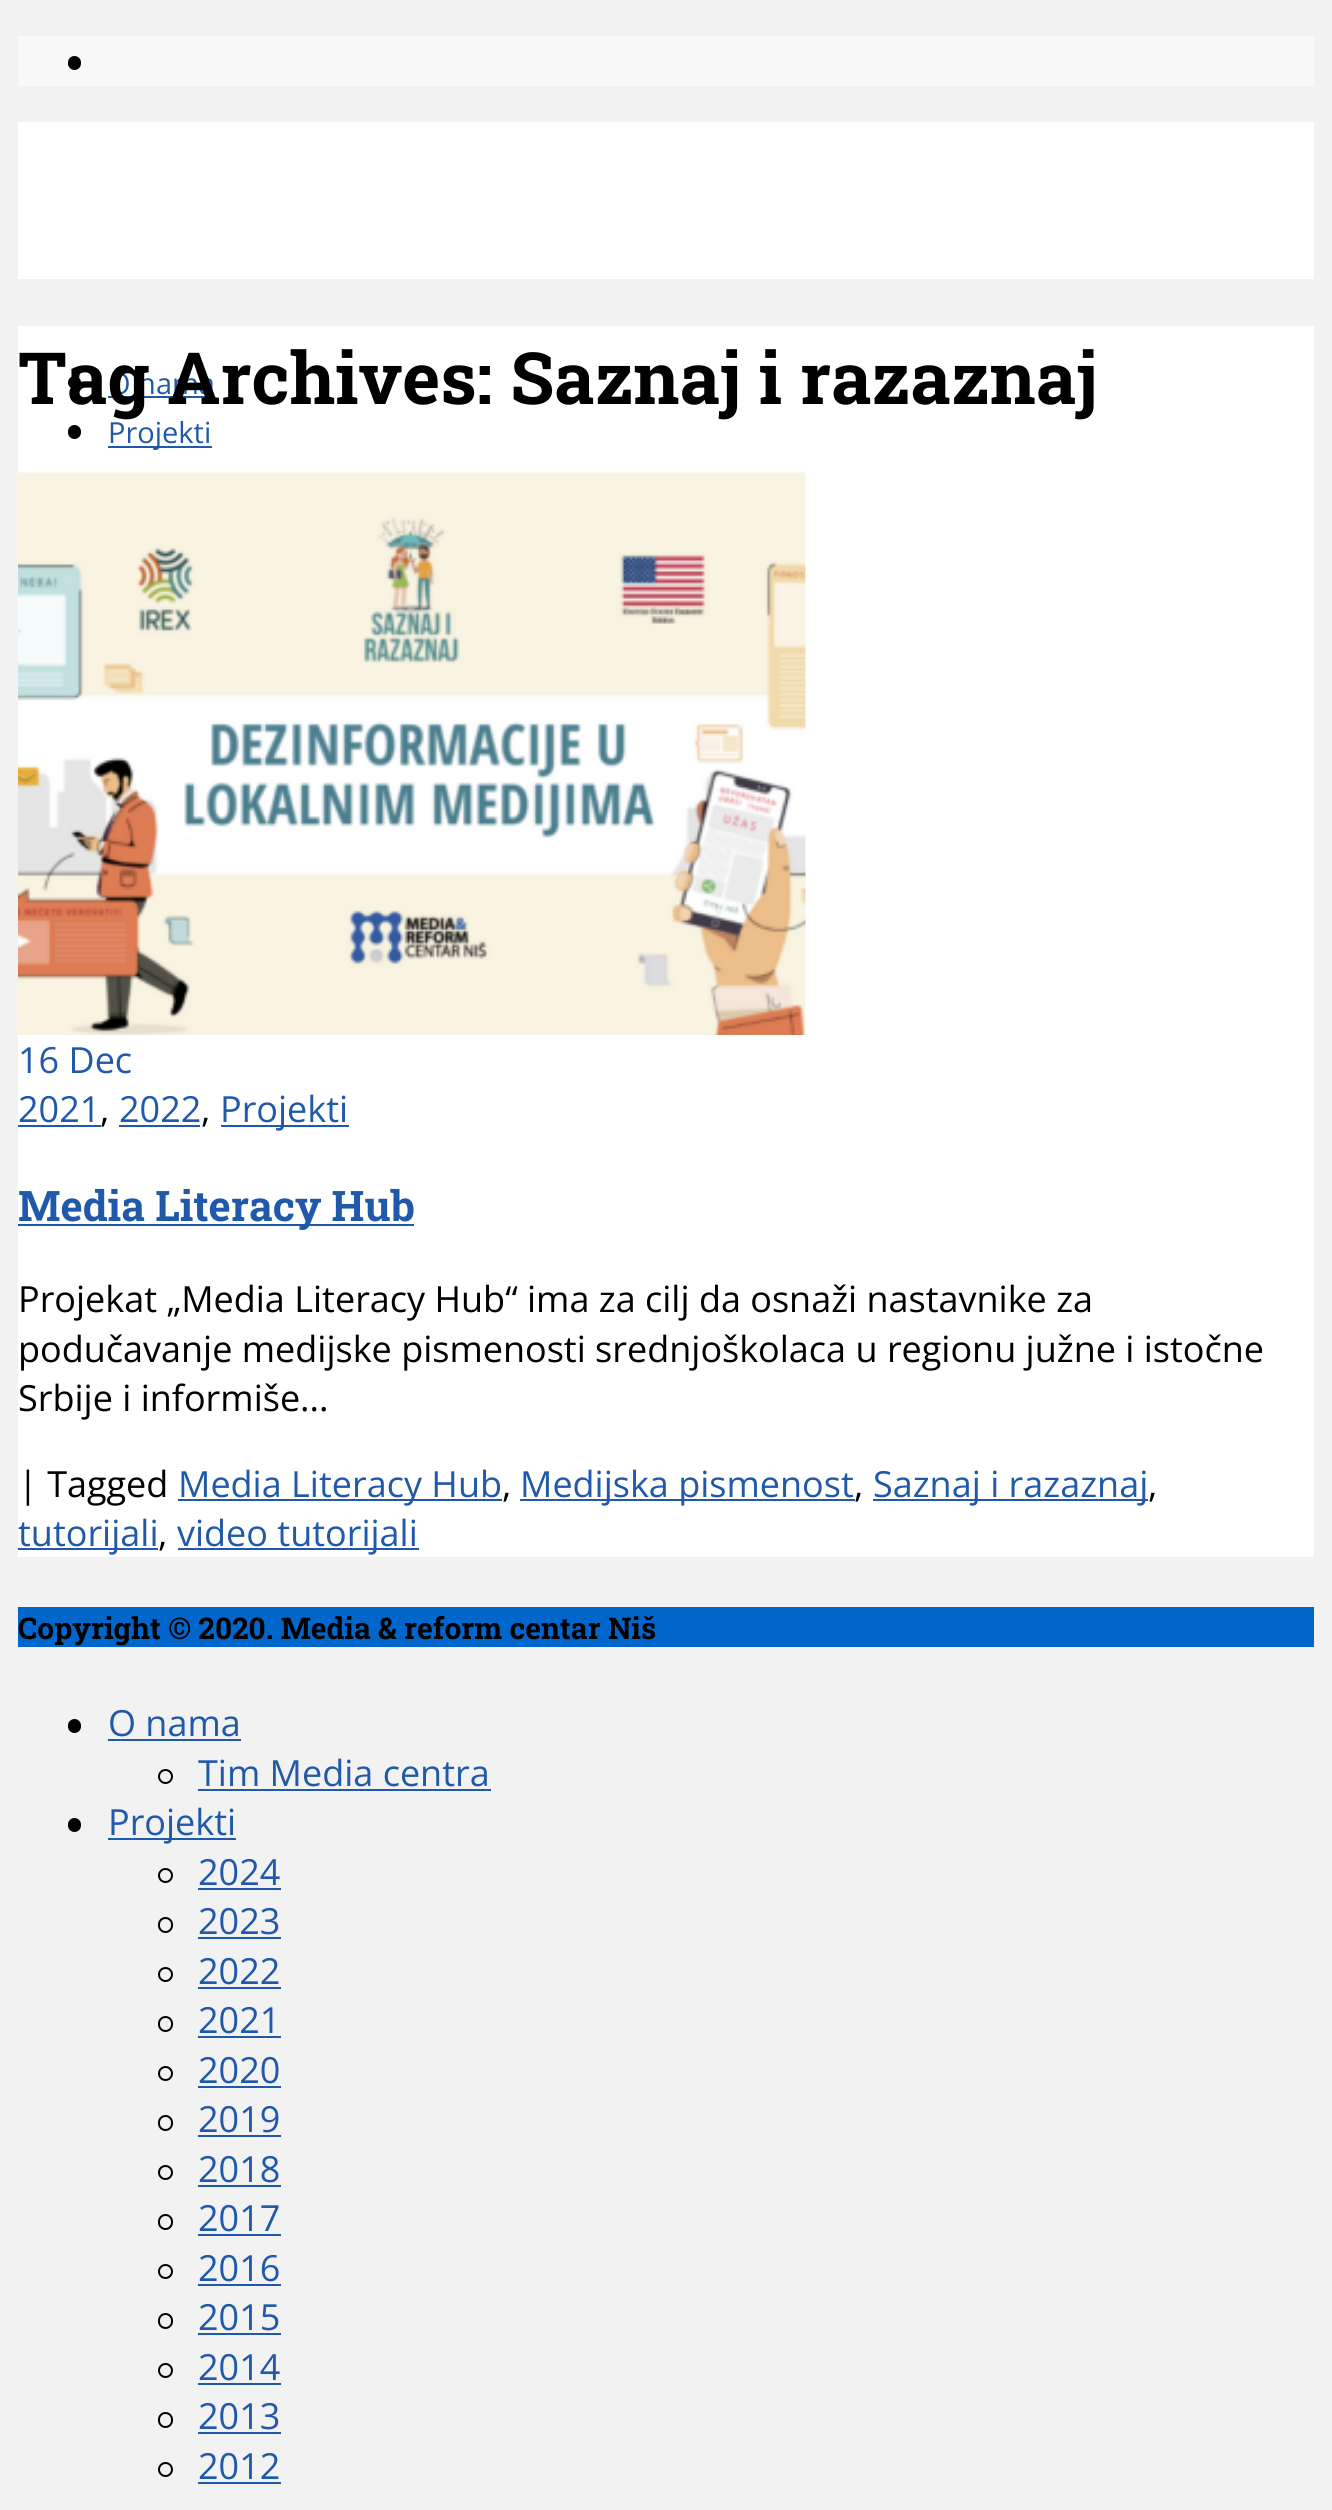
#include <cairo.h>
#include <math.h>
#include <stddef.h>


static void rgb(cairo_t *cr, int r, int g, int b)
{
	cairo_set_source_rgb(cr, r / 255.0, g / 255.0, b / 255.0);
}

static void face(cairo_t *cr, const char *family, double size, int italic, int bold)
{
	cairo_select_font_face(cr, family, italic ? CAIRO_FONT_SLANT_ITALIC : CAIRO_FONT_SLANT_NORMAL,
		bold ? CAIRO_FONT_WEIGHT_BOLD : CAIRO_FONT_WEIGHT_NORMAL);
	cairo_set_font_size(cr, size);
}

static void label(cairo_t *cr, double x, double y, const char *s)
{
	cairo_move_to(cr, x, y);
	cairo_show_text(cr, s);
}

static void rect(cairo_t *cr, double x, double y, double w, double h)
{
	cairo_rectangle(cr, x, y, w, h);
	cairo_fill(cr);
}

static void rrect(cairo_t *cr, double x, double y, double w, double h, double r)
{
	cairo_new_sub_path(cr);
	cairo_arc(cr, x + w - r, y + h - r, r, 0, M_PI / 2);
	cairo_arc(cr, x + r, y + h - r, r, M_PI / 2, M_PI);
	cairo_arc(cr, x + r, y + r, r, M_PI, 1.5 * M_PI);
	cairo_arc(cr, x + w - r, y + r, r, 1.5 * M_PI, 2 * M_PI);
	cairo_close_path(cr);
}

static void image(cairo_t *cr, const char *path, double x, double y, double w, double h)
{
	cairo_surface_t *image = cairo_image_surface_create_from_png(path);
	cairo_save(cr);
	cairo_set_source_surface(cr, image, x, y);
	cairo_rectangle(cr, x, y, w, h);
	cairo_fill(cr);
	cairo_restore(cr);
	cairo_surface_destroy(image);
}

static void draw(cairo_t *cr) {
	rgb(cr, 242, 242, 242);
	cairo_paint(cr);
	rgb(cr, 255, 255, 255);
	rect(cr, 18, 326, 1296, 1231);
	rgb(cr, 0, 0, 0);
	cairo_arc(cr, 74.5, 382.5, 6.5, 0, 2 * M_PI);
	cairo_fill(cr);
	face(cr, "Open Sans", 29, 0, 0);
	rgb(cr, 32, 89, 170);
	label(cr, 108, 394, "O nama");
	rect(cr, 108, 396, 106, 2);
	face(cr, "Roboto Slab", 72, 0, 1);
	rgb(cr, 0, 0, 0);
	label(cr, 18, 404, "Tag Archives: Saznaj i razaznaj");
	image(cr, "image0.png", 18, 472, 788, 563);
	face(cr, "Open Sans", 36, 0, 0);
	rgb(cr, 32, 89, 170);
	label(cr, 18, 1073, "16 Dec");
	label(cr, 18, 1122, "2021");
	rgb(cr, 0, 0, 0);
	label(cr, 100, 1122, ",");
	rgb(cr, 32, 89, 170);
	rect(cr, 18, 1125, 83, 2);
	label(cr, 119, 1122, "2022");
	rgb(cr, 0, 0, 0);
	label(cr, 201, 1122, ",");
	rgb(cr, 32, 89, 170);
	rect(cr, 119, 1125, 81, 2);
	rect(cr, 221, 1125, 128, 2);
	label(cr, 220, 1122, "Projekti");
	rect(cr, 18, 1224, 396, 2);
	face(cr, "Roboto Slab", 42.1, 0, 1);
	label(cr, 18, 1221, "Media Literacy Hub");
	face(cr, "Open Sans", 36, 0, 0);
	rgb(cr, 0, 0, 0);
	label(cr, 18, 1312, "Projekat „Media Literacy Hub“ ima za cilj da osnaži nastavnike za");
	label(cr, 18, 1362, "podučavanje medijske pismenosti srednjoškolaca u regionu južne i istočne");
	label(cr, 18, 1411, "Srbije i informiše...");
	label(cr, 18, 1497, "| Tagged");
	rgb(cr, 32, 89, 170);
	rect(cr, 178, 1499, 324, 2);
	label(cr, 178, 1497, "Media Literacy Hub");
	rgb(cr, 0, 0, 0);
	label(cr, 502, 1497, ",");
	rgb(cr, 32, 89, 170);
	rect(cr, 520, 1499, 335, 2);
	label(cr, 520, 1497, "Medijska pismenost");
	rgb(cr, 0, 0, 0);
	label(cr, 854, 1497, ",");
	rgb(cr, 32, 89, 170);
	rect(cr, 873, 1499, 275, 2);
	label(cr, 873, 1497, "Saznaj i razaznaj");
	rgb(cr, 0, 0, 0);
	label(cr, 1148, 1497, ",");
	rgb(cr, 32, 89, 170);
	rect(cr, 18, 1548, 140, 2);
	label(cr, 18, 1546, "tutorijali");
	rgb(cr, 0, 0, 0);
	label(cr, 158, 1546, ",");
	rgb(cr, 32, 89, 170);
	rect(cr, 178, 1548, 241, 2);
	label(cr, 177, 1546, "video tutorijali");
	rgb(cr, 249, 249, 249);
	rect(cr, 18, 36, 1296, 50);
	rgb(cr, 0, 0, 0);
	rrect(cr, 68, 56, 13, 14, 6.5);
	cairo_fill(cr);
	rgb(cr, 255, 255, 255);
	rect(cr, 18, 122, 1296, 157);
	rgb(cr, 0, 0, 0);
	rrect(cr, 68, 425, 13, 14, 6.5);
	cairo_fill(cr);
	rgb(cr, 32, 89, 170);
	rect(cr, 108, 446, 104, 2);
	face(cr, "Open Sans", 29, 0, 0);
	label(cr, 108, 443, "Projekti");
	rgb(cr, 0, 102, 204);
	rect(cr, 18, 1607, 1296, 40);
	face(cr, "Roboto Slab", 29.9, 0, 1);
	rgb(cr, 0, 0, 0);
	label(cr, 18, 1639, "Copyright © 2020. Media & reform centar Niš");
	rrect(cr, 68, 1719, 13, 14, 6.5);
	cairo_fill(cr);
	face(cr, "Open Sans", 36, 0, 0);
	rgb(cr, 32, 89, 170);
	label(cr, 108, 1736, "O nama");
	rect(cr, 108, 1739, 133, 2);
	cairo_new_path(cr);
	cairo_arc(cr, 165.5, 1776.5, 6.5, 0, 2 * M_PI);
	rgb(cr, 0, 0, 0);
	cairo_stroke(cr);
	rgb(cr, 32, 89, 170);
	label(cr, 198, 1786, "Tim Media centra");
	rect(cr, 198, 1789, 293, 2);
	rgb(cr, 0, 0, 0);
	rrect(cr, 68, 1818, 13, 14, 6.5);
	cairo_fill(cr);
	rgb(cr, 32, 89, 170);
	rect(cr, 108, 1838, 128, 2);
	label(cr, 108, 1835, "Projekti");
	cairo_new_path(cr);
	cairo_arc(cr, 165.5, 1875.5, 6.5, 0, 2 * M_PI);
	rgb(cr, 0, 0, 0);
	cairo_stroke(cr);
	rgb(cr, 32, 89, 170);
	label(cr, 198, 1885, "2024");
	rect(cr, 198, 1888, 83, 2);
	rrect(cr, 159, 1918, 13, 14, 6.5);
	rgb(cr, 0, 0, 0);
	cairo_stroke(cr);
	rgb(cr, 32, 89, 170);
	label(cr, 198, 1934, "2023");
	rect(cr, 198, 1937, 83, 2);
	cairo_new_path(cr);
	cairo_arc(cr, 165.5, 1974.5, 6.5, 0, 2 * M_PI);
	rgb(cr, 0, 0, 0);
	cairo_stroke(cr);
	rgb(cr, 32, 89, 170);
	label(cr, 198, 1984, "2022");
	rect(cr, 198, 1987, 83, 2);
	rrect(cr, 159, 2017, 13, 14, 6.5);
	rgb(cr, 0, 0, 0);
	cairo_stroke(cr);
	rgb(cr, 32, 89, 170);
	label(cr, 198, 2033, "2021");
	rect(cr, 198, 2036, 83, 2);
	cairo_new_path(cr);
	cairo_arc(cr, 165.5, 2073.5, 6.5, 0, 2 * M_PI);
	rgb(cr, 0, 0, 0);
	cairo_stroke(cr);
	rgb(cr, 32, 89, 170);
	label(cr, 198, 2083, "2020");
	rect(cr, 198, 2086, 83, 2);
	rrect(cr, 159, 2116, 13, 14, 6.5);
	rgb(cr, 0, 0, 0);
	cairo_stroke(cr);
	rgb(cr, 32, 89, 170);
	label(cr, 198, 2132, "2019");
	rect(cr, 198, 2135, 83, 2);
	cairo_new_path(cr);
	cairo_arc(cr, 165.5, 2172.5, 6.5, 0, 2 * M_PI);
	rgb(cr, 0, 0, 0);
	cairo_stroke(cr);
	rgb(cr, 32, 89, 170);
	label(cr, 198, 2182, "2018");
	rect(cr, 198, 2185, 83, 2);
	rrect(cr, 159, 2215, 13, 14, 6.5);
	rgb(cr, 0, 0, 0);
	cairo_stroke(cr);
	rgb(cr, 32, 89, 170);
	label(cr, 198, 2231, "2017");
	rect(cr, 198, 2234, 83, 2);
	cairo_new_path(cr);
	cairo_arc(cr, 165.5, 2271.5, 6.5, 0, 2 * M_PI);
	rgb(cr, 0, 0, 0);
	cairo_stroke(cr);
	rgb(cr, 32, 89, 170);
	label(cr, 198, 2281, "2016");
	rect(cr, 198, 2284, 83, 2);
	rrect(cr, 159, 2314, 13, 14, 6.5);
	rgb(cr, 0, 0, 0);
	cairo_stroke(cr);
	rgb(cr, 32, 89, 170);
	label(cr, 198, 2330, "2015");
	rect(cr, 198, 2333, 83, 2);
	cairo_new_path(cr);
	cairo_arc(cr, 165.5, 2370.5, 6.5, 0, 2 * M_PI);
	rgb(cr, 0, 0, 0);
	cairo_stroke(cr);
	rgb(cr, 32, 89, 170);
	label(cr, 198, 2380, "2014");
	rect(cr, 198, 2383, 83, 2);
	rrect(cr, 159, 2413, 13, 14, 6.5);
	rgb(cr, 0, 0, 0);
	cairo_stroke(cr);
	rgb(cr, 32, 89, 170);
	label(cr, 198, 2429, "2013");
	rect(cr, 198, 2432, 83, 2);
	cairo_new_path(cr);
	cairo_arc(cr, 165.5, 2469.5, 6.5, 0, 2 * M_PI);
	rgb(cr, 0, 0, 0);
	cairo_stroke(cr);
	rgb(cr, 32, 89, 170);
	label(cr, 198, 2479, "2012");
	rect(cr, 198, 2482, 83, 2);
}

int main(void) {
	cairo_surface_t *surface = cairo_image_surface_create(CAIRO_FORMAT_RGB24, 1332, 2510);
	cairo_t *cr = cairo_create(surface);
	cairo_font_options_t *options = cairo_font_options_create();
	cairo_font_options_set_hint_metrics(options, CAIRO_HINT_METRICS_OFF);
	cairo_font_options_set_hint_style(options, CAIRO_HINT_STYLE_NONE);
	cairo_set_font_options(cr, options);
	cairo_set_miter_limit(cr, 4);
	draw(cr);
	cairo_surface_write_to_png(surface, "render.png");
	cairo_font_options_destroy(options);
	cairo_destroy(cr);
	cairo_surface_destroy(surface);
	return 0;
}
